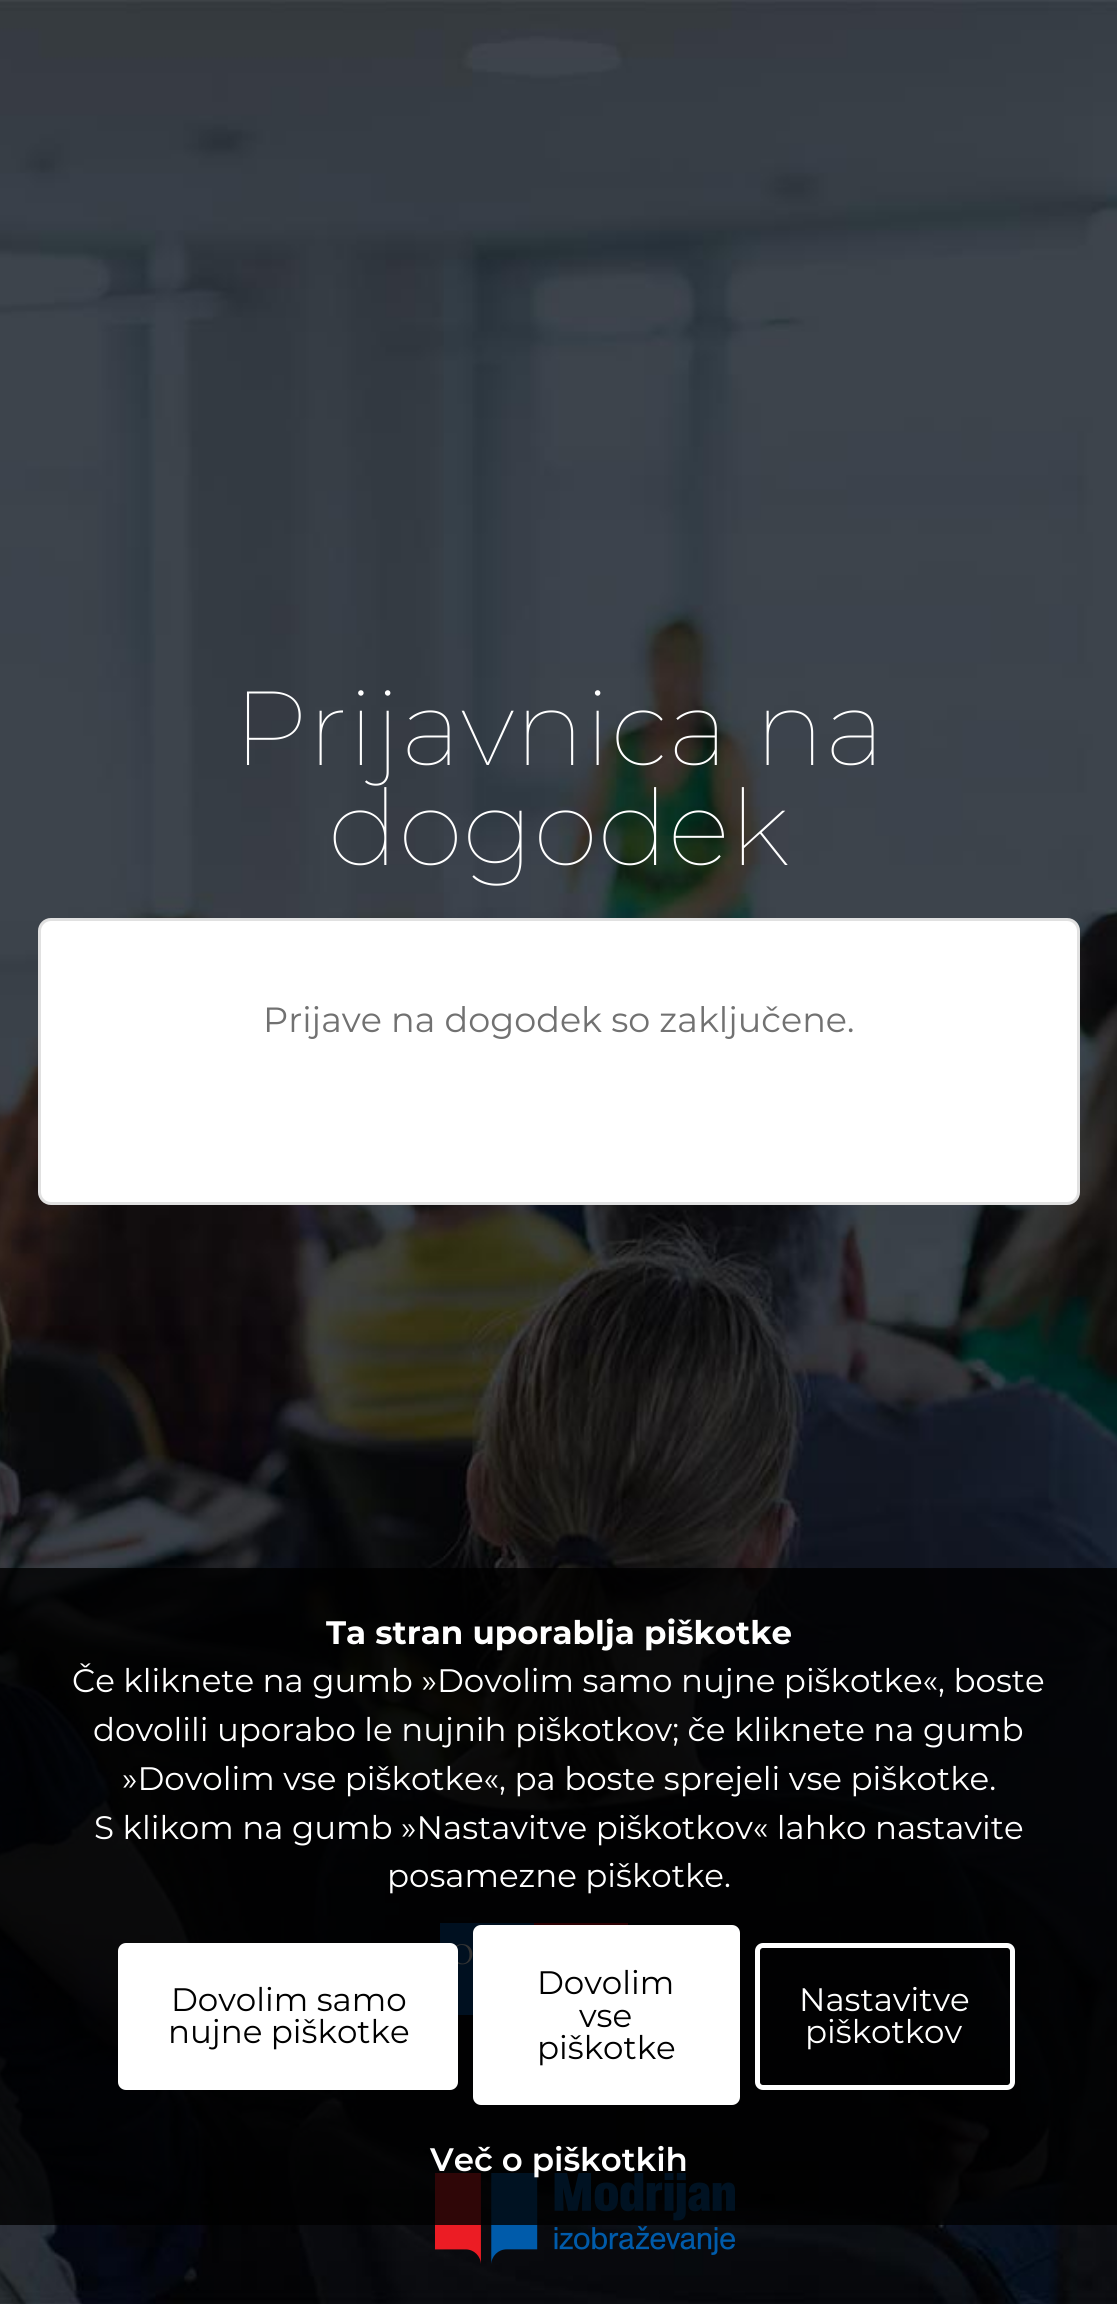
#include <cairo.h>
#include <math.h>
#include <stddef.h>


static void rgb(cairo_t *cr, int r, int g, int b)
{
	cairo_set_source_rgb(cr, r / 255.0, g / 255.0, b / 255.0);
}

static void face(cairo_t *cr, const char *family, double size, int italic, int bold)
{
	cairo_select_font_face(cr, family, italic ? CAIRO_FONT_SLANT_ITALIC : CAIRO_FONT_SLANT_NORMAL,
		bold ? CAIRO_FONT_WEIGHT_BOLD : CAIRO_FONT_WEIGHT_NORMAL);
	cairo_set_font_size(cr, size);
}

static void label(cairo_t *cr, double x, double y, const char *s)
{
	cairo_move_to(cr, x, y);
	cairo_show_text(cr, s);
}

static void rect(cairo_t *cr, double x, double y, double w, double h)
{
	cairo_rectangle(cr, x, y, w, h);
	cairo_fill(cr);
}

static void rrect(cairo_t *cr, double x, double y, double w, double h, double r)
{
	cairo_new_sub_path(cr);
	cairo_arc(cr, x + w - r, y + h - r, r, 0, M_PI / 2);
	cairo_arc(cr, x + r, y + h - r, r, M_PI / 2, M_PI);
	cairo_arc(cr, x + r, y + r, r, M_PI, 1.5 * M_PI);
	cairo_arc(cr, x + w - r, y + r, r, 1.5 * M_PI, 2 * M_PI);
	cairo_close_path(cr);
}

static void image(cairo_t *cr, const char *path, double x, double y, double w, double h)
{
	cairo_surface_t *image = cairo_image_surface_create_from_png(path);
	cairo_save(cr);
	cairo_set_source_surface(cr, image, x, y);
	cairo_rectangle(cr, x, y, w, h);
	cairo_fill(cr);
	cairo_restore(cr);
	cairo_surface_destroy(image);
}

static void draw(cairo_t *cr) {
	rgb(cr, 255, 255, 255);
	cairo_paint(cr);
	image(cr, "image0.png", 0, 0, 1117, 2304);
	face(cr, "Montserrat Thin", 105, 0, 0);
	rgb(cr, 255, 255, 255);
	label(cr, 233, 765, "Prijavnica na");
	label(cr, 328, 865, "dogodek");
	rrect(cr, 38, 918, 1042, 287, 13);
	cairo_fill(cr);
	rrect(cr, 39.5, 919.5, 1039, 284, 11.5);
	cairo_set_source_rgba(cr, 0, 0, 0, 0.12);
	cairo_set_line_width(cr, 3);
	cairo_stroke(cr);
	face(cr, "Montserrat", 35, 0, 0);
	rgb(cr, 113, 113, 113);
	label(cr, 263, 1032, "Prijave na dogodek so zaključene.");
	image(cr, "image1.png", 440, 1923, 188, 92);
	image(cr, "image2.png", 435, 2173, 300, 91);
	cairo_set_source_rgba(cr, 0, 0, 0, 0.8);
	rect(cr, 0, 1568, 1117, 657);
	face(cr, "Montserrat", 32.5, 0, 1);
	rgb(cr, 255, 255, 255);
	label(cr, 326, 1644, "Ta stran uporablja piškotke");
	face(cr, "Montserrat", 32.5, 0, 0);
	label(cr, 72, 1692, "Če kliknete na gumb »Dovolim samo nujne piškotke«, boste");
	label(cr, 93, 1741, "dovolili uporabo le nujnih piškotkov; če kliknete na gumb");
	label(cr, 122, 1790, "»Dovolim vse piškotke«, pa boste sprejeli vse piškotke.");
	label(cr, 94, 1839, "S klikom na gumb »Nastavitve piškotkov« lahko nastavite");
	label(cr, 387, 1887, "posamezne piškotke.");
	rrect(cr, 118, 1943, 340, 147, 8);
	cairo_fill(cr);
	rgb(cr, 0, 0, 0);
	label(cr, 171, 2011, "Dovolim samo");
	label(cr, 168, 2043, "nujne piškotke");
	rgb(cr, 255, 255, 255);
	rrect(cr, 473, 1925, 267, 180, 8);
	cairo_fill(cr);
	rgb(cr, 0, 0, 0);
	label(cr, 537, 1994, "Dovolim");
	label(cr, 579, 2027, "vse");
	label(cr, 537, 2059, "piškotke");
	rrect(cr, 757.5, 1945.5, 255, 142, 5.5);
	rgb(cr, 255, 255, 255);
	cairo_set_line_width(cr, 5);
	cairo_stroke(cr);
	label(cr, 799, 2011, "Nastavitve");
	label(cr, 805, 2043, "piškotkov");
	face(cr, "Montserrat SemiBold", 32.5, 0, 0);
	label(cr, 430, 2171, "Več o piškotkih");
}

int main(void) {
	cairo_surface_t *surface = cairo_image_surface_create(CAIRO_FORMAT_RGB24, 1117, 2304);
	cairo_t *cr = cairo_create(surface);
	cairo_font_options_t *options = cairo_font_options_create();
	cairo_font_options_set_hint_metrics(options, CAIRO_HINT_METRICS_OFF);
	cairo_font_options_set_hint_style(options, CAIRO_HINT_STYLE_NONE);
	cairo_set_font_options(cr, options);
	cairo_set_miter_limit(cr, 4);
	draw(cr);
	cairo_surface_write_to_png(surface, "render.png");
	cairo_font_options_destroy(options);
	cairo_destroy(cr);
	cairo_surface_destroy(surface);
	return 0;
}
